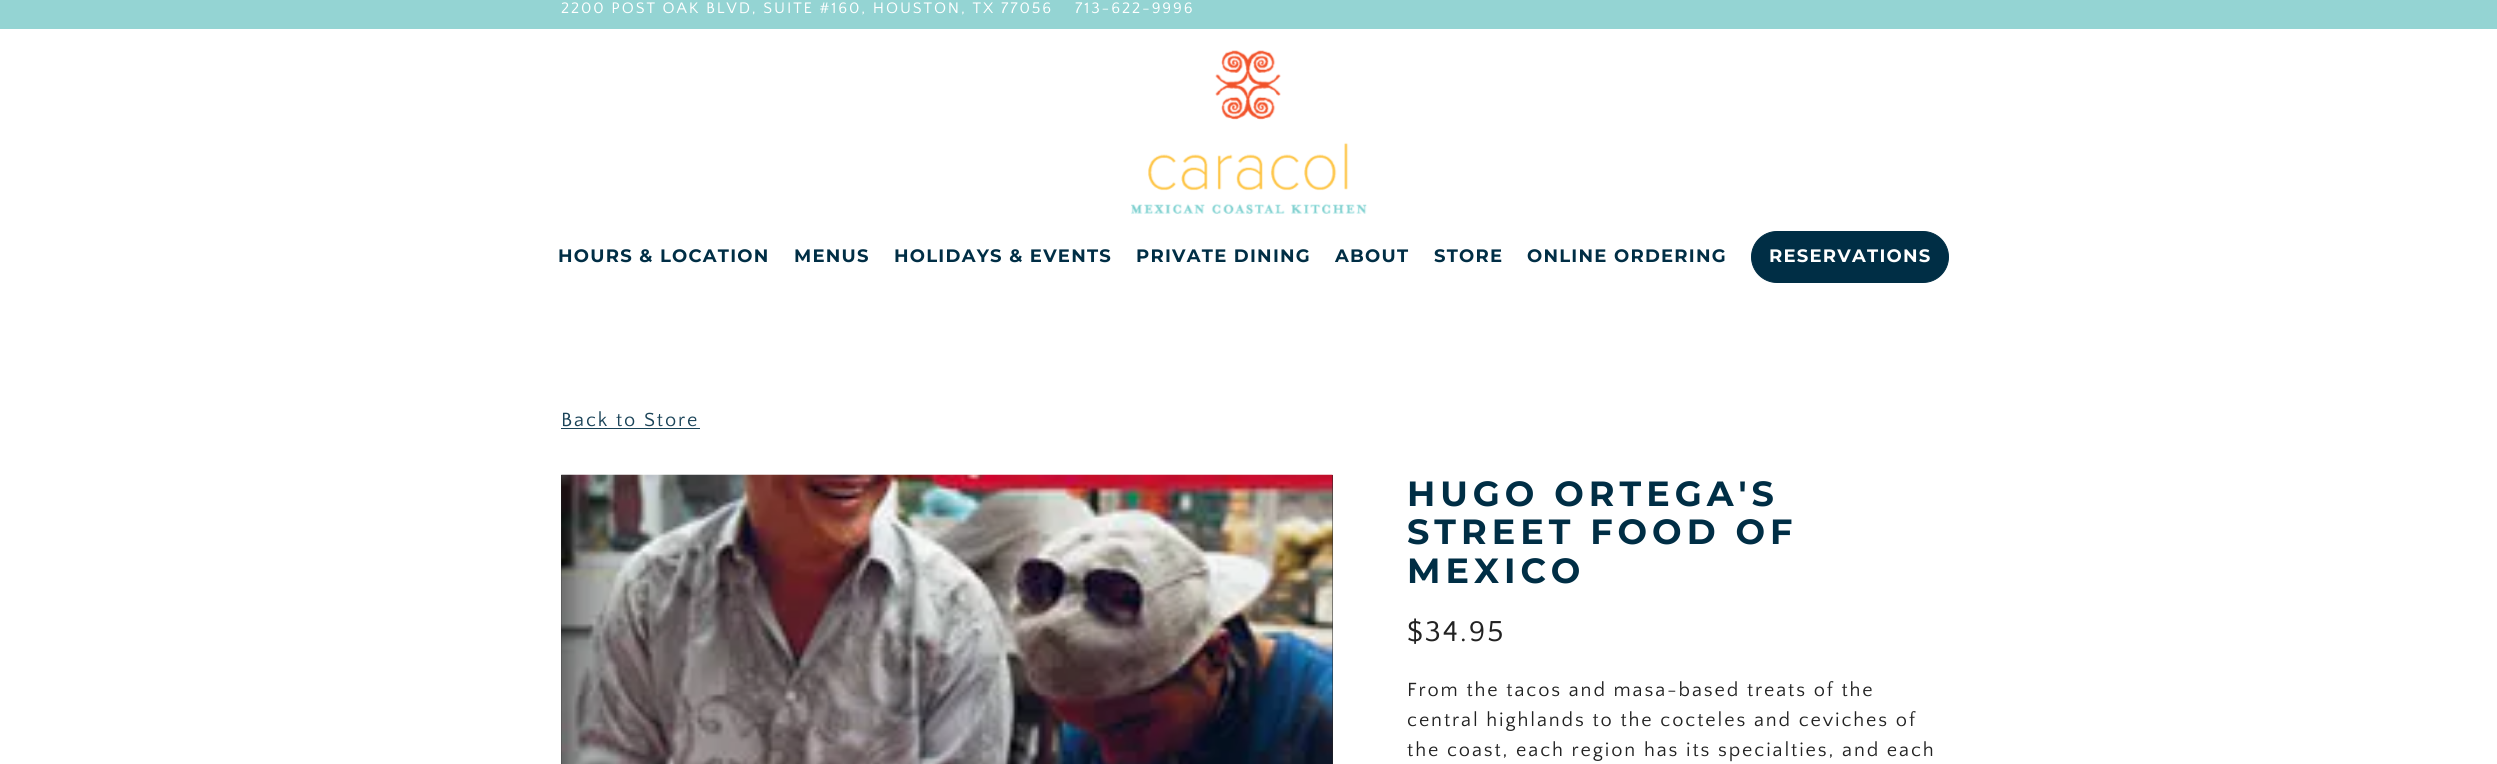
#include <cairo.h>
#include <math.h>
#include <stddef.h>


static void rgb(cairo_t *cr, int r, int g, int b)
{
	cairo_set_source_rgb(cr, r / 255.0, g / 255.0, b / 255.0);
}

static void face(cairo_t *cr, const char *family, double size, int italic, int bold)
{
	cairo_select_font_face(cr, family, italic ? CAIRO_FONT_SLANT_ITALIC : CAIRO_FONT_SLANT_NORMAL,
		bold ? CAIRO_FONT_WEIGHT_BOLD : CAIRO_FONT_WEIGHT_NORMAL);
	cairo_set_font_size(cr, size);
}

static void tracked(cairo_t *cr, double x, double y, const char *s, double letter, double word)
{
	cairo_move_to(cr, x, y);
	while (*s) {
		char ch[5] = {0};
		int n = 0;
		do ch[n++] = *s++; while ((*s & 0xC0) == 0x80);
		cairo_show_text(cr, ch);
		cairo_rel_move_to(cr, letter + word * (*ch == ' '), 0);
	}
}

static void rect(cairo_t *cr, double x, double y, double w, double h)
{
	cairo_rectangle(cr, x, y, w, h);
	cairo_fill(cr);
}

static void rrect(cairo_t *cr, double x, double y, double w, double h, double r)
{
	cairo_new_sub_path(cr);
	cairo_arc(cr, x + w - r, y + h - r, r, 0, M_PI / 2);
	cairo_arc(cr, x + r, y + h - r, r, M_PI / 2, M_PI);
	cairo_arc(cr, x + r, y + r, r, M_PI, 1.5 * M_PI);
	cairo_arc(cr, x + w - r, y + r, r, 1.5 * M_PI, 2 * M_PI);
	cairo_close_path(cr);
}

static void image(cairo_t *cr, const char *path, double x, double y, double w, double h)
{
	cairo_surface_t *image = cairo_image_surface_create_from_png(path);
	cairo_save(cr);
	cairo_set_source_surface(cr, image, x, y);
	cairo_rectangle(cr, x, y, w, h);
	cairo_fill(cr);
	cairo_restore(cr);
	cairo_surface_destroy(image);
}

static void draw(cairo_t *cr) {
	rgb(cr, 255, 255, 255);
	cairo_paint(cr);
	rgb(cr, 148, 212, 211);
	rect(cr, 0, 0, 2497, 29);
	face(cr, "Quattrocento Sans", 16, 0, 0);
	rgb(cr, 255, 255, 255);
	tracked(cr, 561, 13, "2200 POST OAK BLVD, SUITE #160, HOUSTON, TX 77056", 1.88, 0);
	tracked(cr, 1075, 13, "713-622-9996", 1.88, 0);
	image(cr, "image0.png", 1131, 50, 236, 164);
	face(cr, "Montserrat", 18, 0, 1);
	rgb(cr, 0, 46, 69);
	tracked(cr, 558, 262, "HOURS & LOCATION", 1.25, 0);
	tracked(cr, 794, 262, "MENUS", 1.25, 0);
	tracked(cr, 894, 262, "HOLIDAYS & EVENTS", 1.25, 0);
	tracked(cr, 1136, 262, "PRIVATE DINING", 1.25, 0);
	tracked(cr, 1335, 262, "ABOUT", 1.25, 0);
	tracked(cr, 1434, 262, "STORE", 1.25, 0);
	tracked(cr, 1527, 262, "ONLINE ORDERING", 1.25, 0);
	rrect(cr, 1751.5, 231.5, 197, 51, 25.5);
	cairo_fill_preserve(cr);
	cairo_set_line_width(cr, 1);
	cairo_stroke(cr);
	rgb(cr, 255, 255, 255);
	tracked(cr, 1769, 262, "RESERVATIONS", 1.25, 0);
	face(cr, "Quattrocento Sans", 20, 0, 0);
	rgb(cr, 26, 67, 88);
	tracked(cr, 561, 426, "Back to Store", 1.88, 0);
	rect(cr, 561, 428, 139, 1);
	rgb(cr, 34, 34, 34);
	rect(cr, 561, 475, 772, 289);
	image(cr, "image1.png", 561, 474, 772, 290);
	face(cr, "Montserrat", 35, 0, 1);
	rgb(cr, 0, 46, 69);
	tracked(cr, 1407, 506, "HUGO ORTEGA'S", 5, 0);
	tracked(cr, 1407, 544, "STREET FOOD OF", 5, 0);
	tracked(cr, 1407, 583, "MEXICO", 5, 0);
	face(cr, "Quattrocento Sans", 30, 0, 0);
	rgb(cr, 34, 34, 34);
	tracked(cr, 1407, 641, "$34.95", 1.88, 0);
	face(cr, "Quattrocento Sans", 20, 0, 0);
	tracked(cr, 1407, 696, "From the tacos and masa-based treats of the", 1.88, 0);
	tracked(cr, 1407, 726, "central highlands to the cocteles and ceviches of", 1.88, 0);
	tracked(cr, 1407, 756, "the coast, each region has its specialties, and each", 1.88, 0);
}

int main(void) {
	cairo_surface_t *surface = cairo_image_surface_create(CAIRO_FORMAT_RGB24, 2497, 764);
	cairo_t *cr = cairo_create(surface);
	cairo_font_options_t *options = cairo_font_options_create();
	cairo_font_options_set_hint_metrics(options, CAIRO_HINT_METRICS_OFF);
	cairo_font_options_set_hint_style(options, CAIRO_HINT_STYLE_NONE);
	cairo_set_font_options(cr, options);
	cairo_set_miter_limit(cr, 4);
	draw(cr);
	cairo_surface_write_to_png(surface, "render.png");
	cairo_font_options_destroy(options);
	cairo_destroy(cr);
	cairo_surface_destroy(surface);
	return 0;
}
